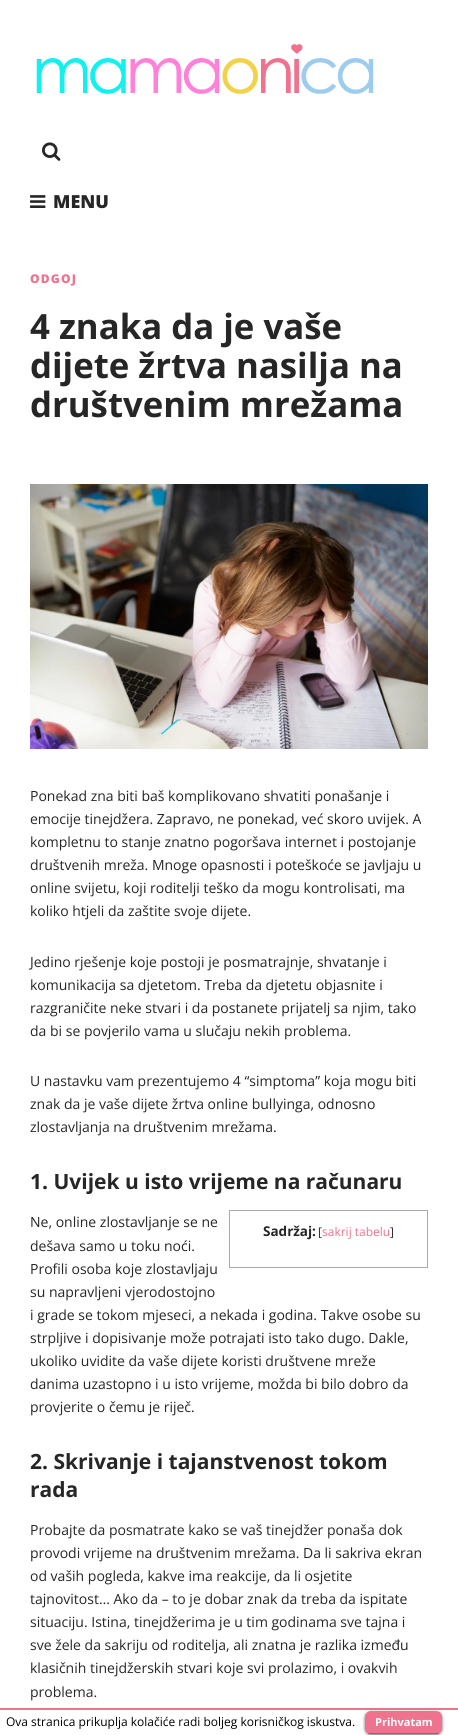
#include <cairo.h>
#include <math.h>
#include <stddef.h>


static void rgb(cairo_t *cr, int r, int g, int b)
{
	cairo_set_source_rgb(cr, r / 255.0, g / 255.0, b / 255.0);
}

static void face(cairo_t *cr, const char *family, double size, int italic, int bold)
{
	cairo_select_font_face(cr, family, italic ? CAIRO_FONT_SLANT_ITALIC : CAIRO_FONT_SLANT_NORMAL,
		bold ? CAIRO_FONT_WEIGHT_BOLD : CAIRO_FONT_WEIGHT_NORMAL);
	cairo_set_font_size(cr, size);
}

static void label(cairo_t *cr, double x, double y, const char *s)
{
	cairo_move_to(cr, x, y);
	cairo_show_text(cr, s);
}

static void tracked(cairo_t *cr, double x, double y, const char *s, double letter, double word)
{
	cairo_move_to(cr, x, y);
	while (*s) {
		char ch[5] = {0};
		int n = 0;
		do ch[n++] = *s++; while ((*s & 0xC0) == 0x80);
		cairo_show_text(cr, ch);
		cairo_rel_move_to(cr, letter + word * (*ch == ' '), 0);
	}
}

static void rect(cairo_t *cr, double x, double y, double w, double h)
{
	cairo_rectangle(cr, x, y, w, h);
	cairo_fill(cr);
}

static void rrect(cairo_t *cr, double x, double y, double w, double h, double r)
{
	cairo_new_sub_path(cr);
	cairo_arc(cr, x + w - r, y + h - r, r, 0, M_PI / 2);
	cairo_arc(cr, x + r, y + h - r, r, M_PI / 2, M_PI);
	cairo_arc(cr, x + r, y + r, r, M_PI, 1.5 * M_PI);
	cairo_arc(cr, x + w - r, y + r, r, 1.5 * M_PI, 2 * M_PI);
	cairo_close_path(cr);
}

static void soft_shadow(cairo_t *cr, double x, double y, double w, double h, double r, double blur, double alpha)
{
	cairo_push_group_with_content(cr, CAIRO_CONTENT_ALPHA);
	cairo_set_operator(cr, CAIRO_OPERATOR_SOURCE);
	for (int i = 15; i >= -15 && fmin(w, h) + blur * i / 3 > 0; i -= 2) {
		double e = blur * i / 6;
		cairo_set_source_rgba(cr, 0, 0, 0, alpha * erfc((i - 1) / 8.5) / 2);
		rrect(cr, x - e, y - e, w + 2 * e, h + 2 * e, fmax(0, fmin(r + e + blur * .6, fmin(w, h) / 2 + e)));
		cairo_fill(cr);
	}
	cairo_pattern_t *soft = cairo_pop_group(cr);
	cairo_mask(cr, soft);
	cairo_pattern_destroy(soft);
}

static void image(cairo_t *cr, const char *path, double x, double y, double w, double h)
{
	cairo_surface_t *image = cairo_image_surface_create_from_png(path);
	cairo_save(cr);
	cairo_set_source_surface(cr, image, x, y);
	cairo_rectangle(cr, x, y, w, h);
	cairo_fill(cr);
	cairo_restore(cr);
	cairo_surface_destroy(image);
}

static void draw(cairo_t *cr) {
	rgb(cr, 255, 255, 255);
	cairo_paint(cr);
	image(cr, "image0.png", 36, 44, 338, 50);
	image(cr, "image1.png", 42, 142, 19, 19);
	image(cr, "image2.png", 30, 195, 16, 13);
	face(cr, "Open Sans ExtraBold", 18, 0, 0);
	rgb(cr, 38, 38, 38);
	label(cr, 53, 208, "MENU");
	face(cr, "Open Sans ExtraBold", 12, 0, 0);
	rgb(cr, 239, 115, 142);
	tracked(cr, 30, 283, "ODGOJ", 1.25, 0);
	face(cr, "Open Sans", 34.75, 0, 1);
	rgb(cr, 38, 38, 38);
	label(cr, 30, 339, "4 znaka da je vaše");
	label(cr, 30, 378, "dijete žrtva nasilja na");
	label(cr, 30, 417, "društvenim mrežama");
	image(cr, "image3.png", 30, 484, 398, 265);
	face(cr, "Open Sans", 14, 0, 0);
	label(cr, 30, 801, "Ponekad zna biti baš komplikovano shvatiti ponašanje i");
	label(cr, 30, 824, "emocije tinejdžera. Zapravo, ne ponekad, već skoro uvijek. A");
	label(cr, 30, 847, "kompletnu to stanje znatno pogoršava internet i postojanje");
	label(cr, 30, 870, "društvenih mreža. Mnoge opasnosti i poteškoće se javljaju u");
	label(cr, 30, 893, "online svijetu, koji roditelji teško da mogu kontrolisati, ma");
	label(cr, 30, 916, "koliko htjeli da zaštite svoje dijete.");
	label(cr, 30, 967, "Jedino rješenje koje postoji je posmatrajnje, shvatanje i");
	label(cr, 30, 990, "komunikacija sa djetetom. Treba da djetetu objasnite i");
	label(cr, 30, 1013, "razgraničite neke stvari i da postanete prijatelj sa njim, tako");
	label(cr, 30, 1036, "da bi se povjerilo vama u slučaju nekih problema.");
	label(cr, 30, 1086, "U nastavku vam prezentujemo 4 “simptoma” koja mogu biti");
	label(cr, 30, 1109, "znak da je vaše dijete žrtva online bullyinga, odnosno");
	label(cr, 30, 1132, "zlostavljanja na društvenim mrežama.");
	face(cr, "Open Sans", 21, 0, 1);
	label(cr, 30, 1189, "1. Uvijek u isto vrijeme na računaru");
	face(cr, "Open Sans", 14, 0, 0);
	label(cr, 30, 1227, "Ne, online zlostavljanje se ne");
	label(cr, 30, 1251, "dešava samo u toku noći.");
	label(cr, 30, 1274, "Profili osoba koje zlostavljaju");
	label(cr, 30, 1297, "su napravljeni vjerodostojno");
	label(cr, 30, 1320, "i grade se tokom mjeseci, a nekada i godina. Takve osobe su");
	label(cr, 30, 1343, "strpljive i dopisivanje može potrajati isto tako dugo. Dakle,");
	label(cr, 30, 1366, "ukoliko uvidite da vaše dijete koristi društvene mreže");
	label(cr, 30, 1389, "danima uzastopno i u isto vrijeme, možda bi bilo dobro da");
	label(cr, 30, 1412, "provjerite o čemu je riječ.");
	cairo_rectangle(cr, 229.5, 1210.5, 198, 57);
	rgb(cr, 170, 170, 170);
	cairo_set_line_width(cr, 1);
	cairo_stroke(cr);
	face(cr, "Open Sans", 13.5, 0, 1);
	rgb(cr, 38, 38, 38);
	label(cr, 263, 1236, "Sadržaj:");
	face(cr, "Open Sans", 12, 0, 0);
	label(cr, 318, 1236, "[");
	rgb(cr, 239, 115, 142);
	label(cr, 322, 1236, "sakrij tabelu");
	rgb(cr, 38, 38, 38);
	label(cr, 390, 1236, "]");
	face(cr, "Open Sans", 21, 0, 1);
	label(cr, 30, 1469, "2. Skrivanje i tajanstvenost tokom");
	label(cr, 30, 1497, "rada");
	face(cr, "Open Sans", 14, 0, 0);
	label(cr, 30, 1535, "Probajte da posmatrate kako se vaš tinejdžer ponaša dok");
	label(cr, 30, 1558, "provodi vrijeme na društvenim mrežama. Da li sakriva ekran");
	label(cr, 30, 1581, "od vaših pogleda, kakve ima reakcije, da li osjetite");
	label(cr, 30, 1604, "tajnovitost… Ako da – to je dobar znak da treba da ispitate");
	label(cr, 30, 1627, "situaciju. Istina, tinejdžerima je u tim godinama sve tajna i");
	label(cr, 30, 1650, "sve žele da sakriju od roditelja, ali znatna je razlika između");
	label(cr, 30, 1673, "klasičnih tinejdžerskih stvari koje svi prolazimo, i ovakvih");
	label(cr, 30, 1697, "problema.");
	rgb(cr, 239, 115, 142);
	rect(cr, 0, 1708, 458, 2);
	face(cr, "Open Sans", 12, 0, 0);
	rgb(cr, 0, 0, 0);
	label(cr, 6, 1726, "Ova stranica prikuplja kolačiće radi boljeg korisničkog iskustva.");
	rgb(cr, 0, 0, 0);
	soft_shadow(cr, 365, 1712, 77, 23, 6, 1.5, 0.6);
	rgb(cr, 239, 115, 142);
	rrect(cr, 365, 1711, 77, 23, 6);
	cairo_fill(cr);
	cairo_set_source_rgba(cr, 0, 0, 0, 0.25);
	rect(cr, 368, 1733, 71, 1);
	face(cr, "Open Sans", 11, 0, 1);
	rgb(cr, 255, 255, 255);
	label(cr, 375, 1726, "Prihvatam");
}

int main(void) {
	cairo_surface_t *surface = cairo_image_surface_create(CAIRO_FORMAT_RGB24, 458, 1735);
	cairo_t *cr = cairo_create(surface);
	cairo_font_options_t *options = cairo_font_options_create();
	cairo_font_options_set_hint_metrics(options, CAIRO_HINT_METRICS_OFF);
	cairo_font_options_set_hint_style(options, CAIRO_HINT_STYLE_NONE);
	cairo_set_font_options(cr, options);
	cairo_set_miter_limit(cr, 4);
	draw(cr);
	cairo_surface_write_to_png(surface, "render.png");
	cairo_font_options_destroy(options);
	cairo_destroy(cr);
	cairo_surface_destroy(surface);
	return 0;
}
